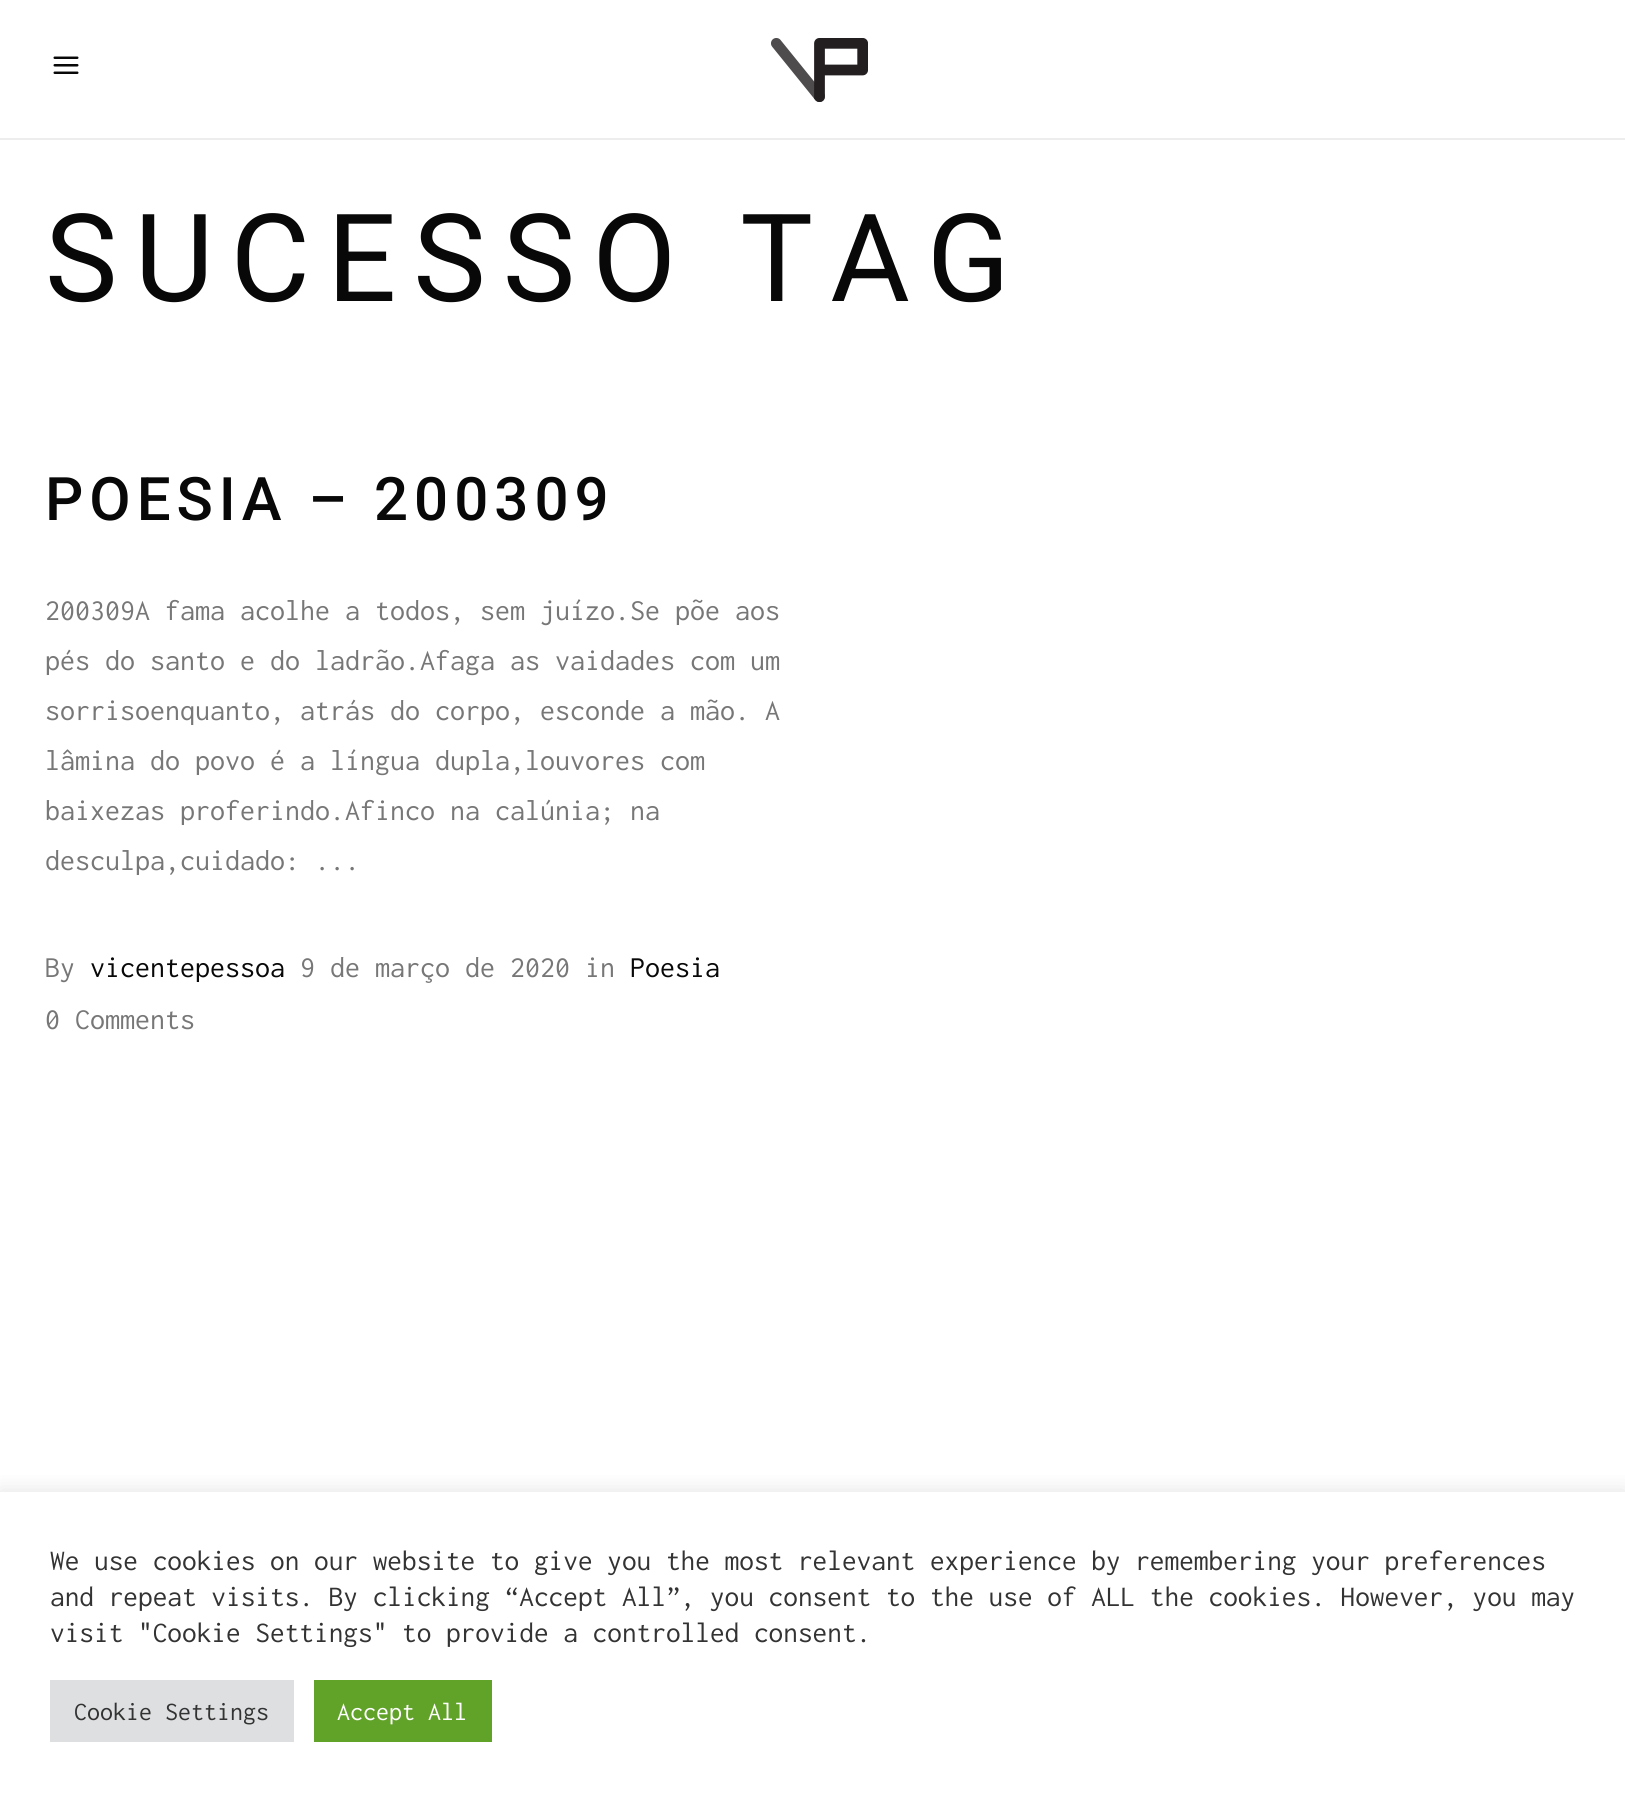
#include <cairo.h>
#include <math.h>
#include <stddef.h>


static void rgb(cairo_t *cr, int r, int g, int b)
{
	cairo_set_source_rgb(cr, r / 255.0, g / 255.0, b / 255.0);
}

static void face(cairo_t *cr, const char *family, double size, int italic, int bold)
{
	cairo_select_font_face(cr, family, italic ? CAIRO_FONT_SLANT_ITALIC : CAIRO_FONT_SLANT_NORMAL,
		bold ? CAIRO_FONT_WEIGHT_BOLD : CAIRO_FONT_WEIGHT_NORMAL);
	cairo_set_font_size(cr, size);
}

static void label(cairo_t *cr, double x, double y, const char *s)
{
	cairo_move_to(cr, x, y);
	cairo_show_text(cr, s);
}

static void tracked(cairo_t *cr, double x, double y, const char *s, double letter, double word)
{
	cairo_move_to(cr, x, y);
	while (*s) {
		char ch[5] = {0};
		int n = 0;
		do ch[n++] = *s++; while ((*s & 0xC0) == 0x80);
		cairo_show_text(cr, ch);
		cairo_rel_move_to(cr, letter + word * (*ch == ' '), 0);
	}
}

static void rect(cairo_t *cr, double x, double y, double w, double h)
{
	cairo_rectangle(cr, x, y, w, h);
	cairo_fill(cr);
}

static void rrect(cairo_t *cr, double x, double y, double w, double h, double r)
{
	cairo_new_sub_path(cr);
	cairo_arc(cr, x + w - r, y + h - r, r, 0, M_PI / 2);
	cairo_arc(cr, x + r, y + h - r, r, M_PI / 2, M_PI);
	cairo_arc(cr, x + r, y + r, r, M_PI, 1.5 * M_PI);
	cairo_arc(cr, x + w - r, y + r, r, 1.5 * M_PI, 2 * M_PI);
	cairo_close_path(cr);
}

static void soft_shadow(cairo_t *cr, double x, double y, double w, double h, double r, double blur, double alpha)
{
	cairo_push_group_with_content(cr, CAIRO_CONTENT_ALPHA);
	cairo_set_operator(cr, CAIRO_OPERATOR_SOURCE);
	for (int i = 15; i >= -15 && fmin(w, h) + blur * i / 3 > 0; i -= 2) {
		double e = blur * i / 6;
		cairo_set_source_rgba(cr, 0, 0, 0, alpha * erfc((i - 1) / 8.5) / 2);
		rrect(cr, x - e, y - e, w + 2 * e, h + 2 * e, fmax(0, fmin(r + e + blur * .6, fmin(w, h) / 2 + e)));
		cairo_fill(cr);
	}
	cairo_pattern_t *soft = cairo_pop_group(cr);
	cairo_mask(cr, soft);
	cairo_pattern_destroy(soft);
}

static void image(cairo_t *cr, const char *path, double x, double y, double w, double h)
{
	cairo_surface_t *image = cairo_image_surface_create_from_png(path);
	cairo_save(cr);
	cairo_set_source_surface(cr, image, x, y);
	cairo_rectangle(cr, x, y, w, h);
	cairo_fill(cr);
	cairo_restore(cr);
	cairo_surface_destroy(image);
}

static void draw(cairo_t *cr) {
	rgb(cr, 255, 255, 255);
	cairo_paint(cr);
	rgb(cr, 237, 237, 237);
	rect(cr, 0, 138, 1625, 2);
	image(cr, "image0.png", 53, 56, 26, 18);
	image(cr, "image1.png", 771, 38, 97, 64);
	face(cr, "Roboto", 122, 0, 0);
	rgb(cr, 8, 8, 8);
	tracked(cr, 45, 301, "SUCESSO TAG", 17, 0);
	face(cr, "Roboto Medium", 60, 0, 0);
	tracked(cr, 45, 520, "POESIA – 200309", 6, 0);
	face(cr, "Inconsolata", 30, 0, 0);
	rgb(cr, 119, 119, 119);
	label(cr, 45, 620, "200309A fama acolhe a todos, sem juízo.Se põe aos");
	label(cr, 45, 670, "pés do santo e do ladrão.Afaga as vaidades com um");
	label(cr, 45, 720, "sorrisoenquanto, atrás do corpo, esconde a mão. A");
	label(cr, 45, 770, "lâmina do povo é a língua dupla,louvores com");
	label(cr, 45, 820, "baixezas proferindo.Afinco na calúnia; na");
	label(cr, 45, 870, "desculpa,cuidado: ...");
	label(cr, 45, 977, "By");
	rgb(cr, 8, 8, 8);
	label(cr, 90, 977, "vicentepessoa");
	rgb(cr, 119, 119, 119);
	label(cr, 300, 977, "9 de março de 2020 in");
	rgb(cr, 8, 8, 8);
	label(cr, 630, 977, "Poesia");
	rgb(cr, 119, 119, 119);
	label(cr, 45, 1029, "0 Comments");
	cairo_save(cr);
	cairo_rectangle(cr, 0, 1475, 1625, 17);
	cairo_clip(cr);
	rgb(cr, 172, 171, 171);
	soft_shadow(cr, 0, 1490, 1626, 310, 0, 10, 0.3);
	cairo_restore(cr);
	face(cr, "Inconsolata", 29.33, 0, 0);
	rgb(cr, 51, 51, 51);
	label(cr, 50, 1570, "We use cookies on our website to give you the most relevant experience by remembering your preferences");
	label(cr, 50, 1606, "and repeat visits. By clicking “Accept All”, you consent to the use of ALL the cookies. However, you may");
	label(cr, 50, 1642, "visit \"Cookie Settings\" to provide a controlled consent.");
	rgb(cr, 222, 223, 224);
	rect(cr, 50, 1680, 244, 62);
	face(cr, "Inconsolata", 26, 0, 0);
	rgb(cr, 51, 51, 51);
	label(cr, 74, 1720, "Cookie Settings");
	rgb(cr, 97, 162, 41);
	rect(cr, 314, 1680, 178, 62);
	rgb(cr, 255, 255, 255);
	label(cr, 337, 1720, "Accept All");
}

int main(void) {
	cairo_surface_t *surface = cairo_image_surface_create(CAIRO_FORMAT_RGB24, 1625, 1802);
	cairo_t *cr = cairo_create(surface);
	cairo_font_options_t *options = cairo_font_options_create();
	cairo_font_options_set_hint_metrics(options, CAIRO_HINT_METRICS_OFF);
	cairo_font_options_set_hint_style(options, CAIRO_HINT_STYLE_NONE);
	cairo_set_font_options(cr, options);
	cairo_set_miter_limit(cr, 4);
	draw(cr);
	cairo_surface_write_to_png(surface, "render.png");
	cairo_font_options_destroy(options);
	cairo_destroy(cr);
	cairo_surface_destroy(surface);
	return 0;
}
